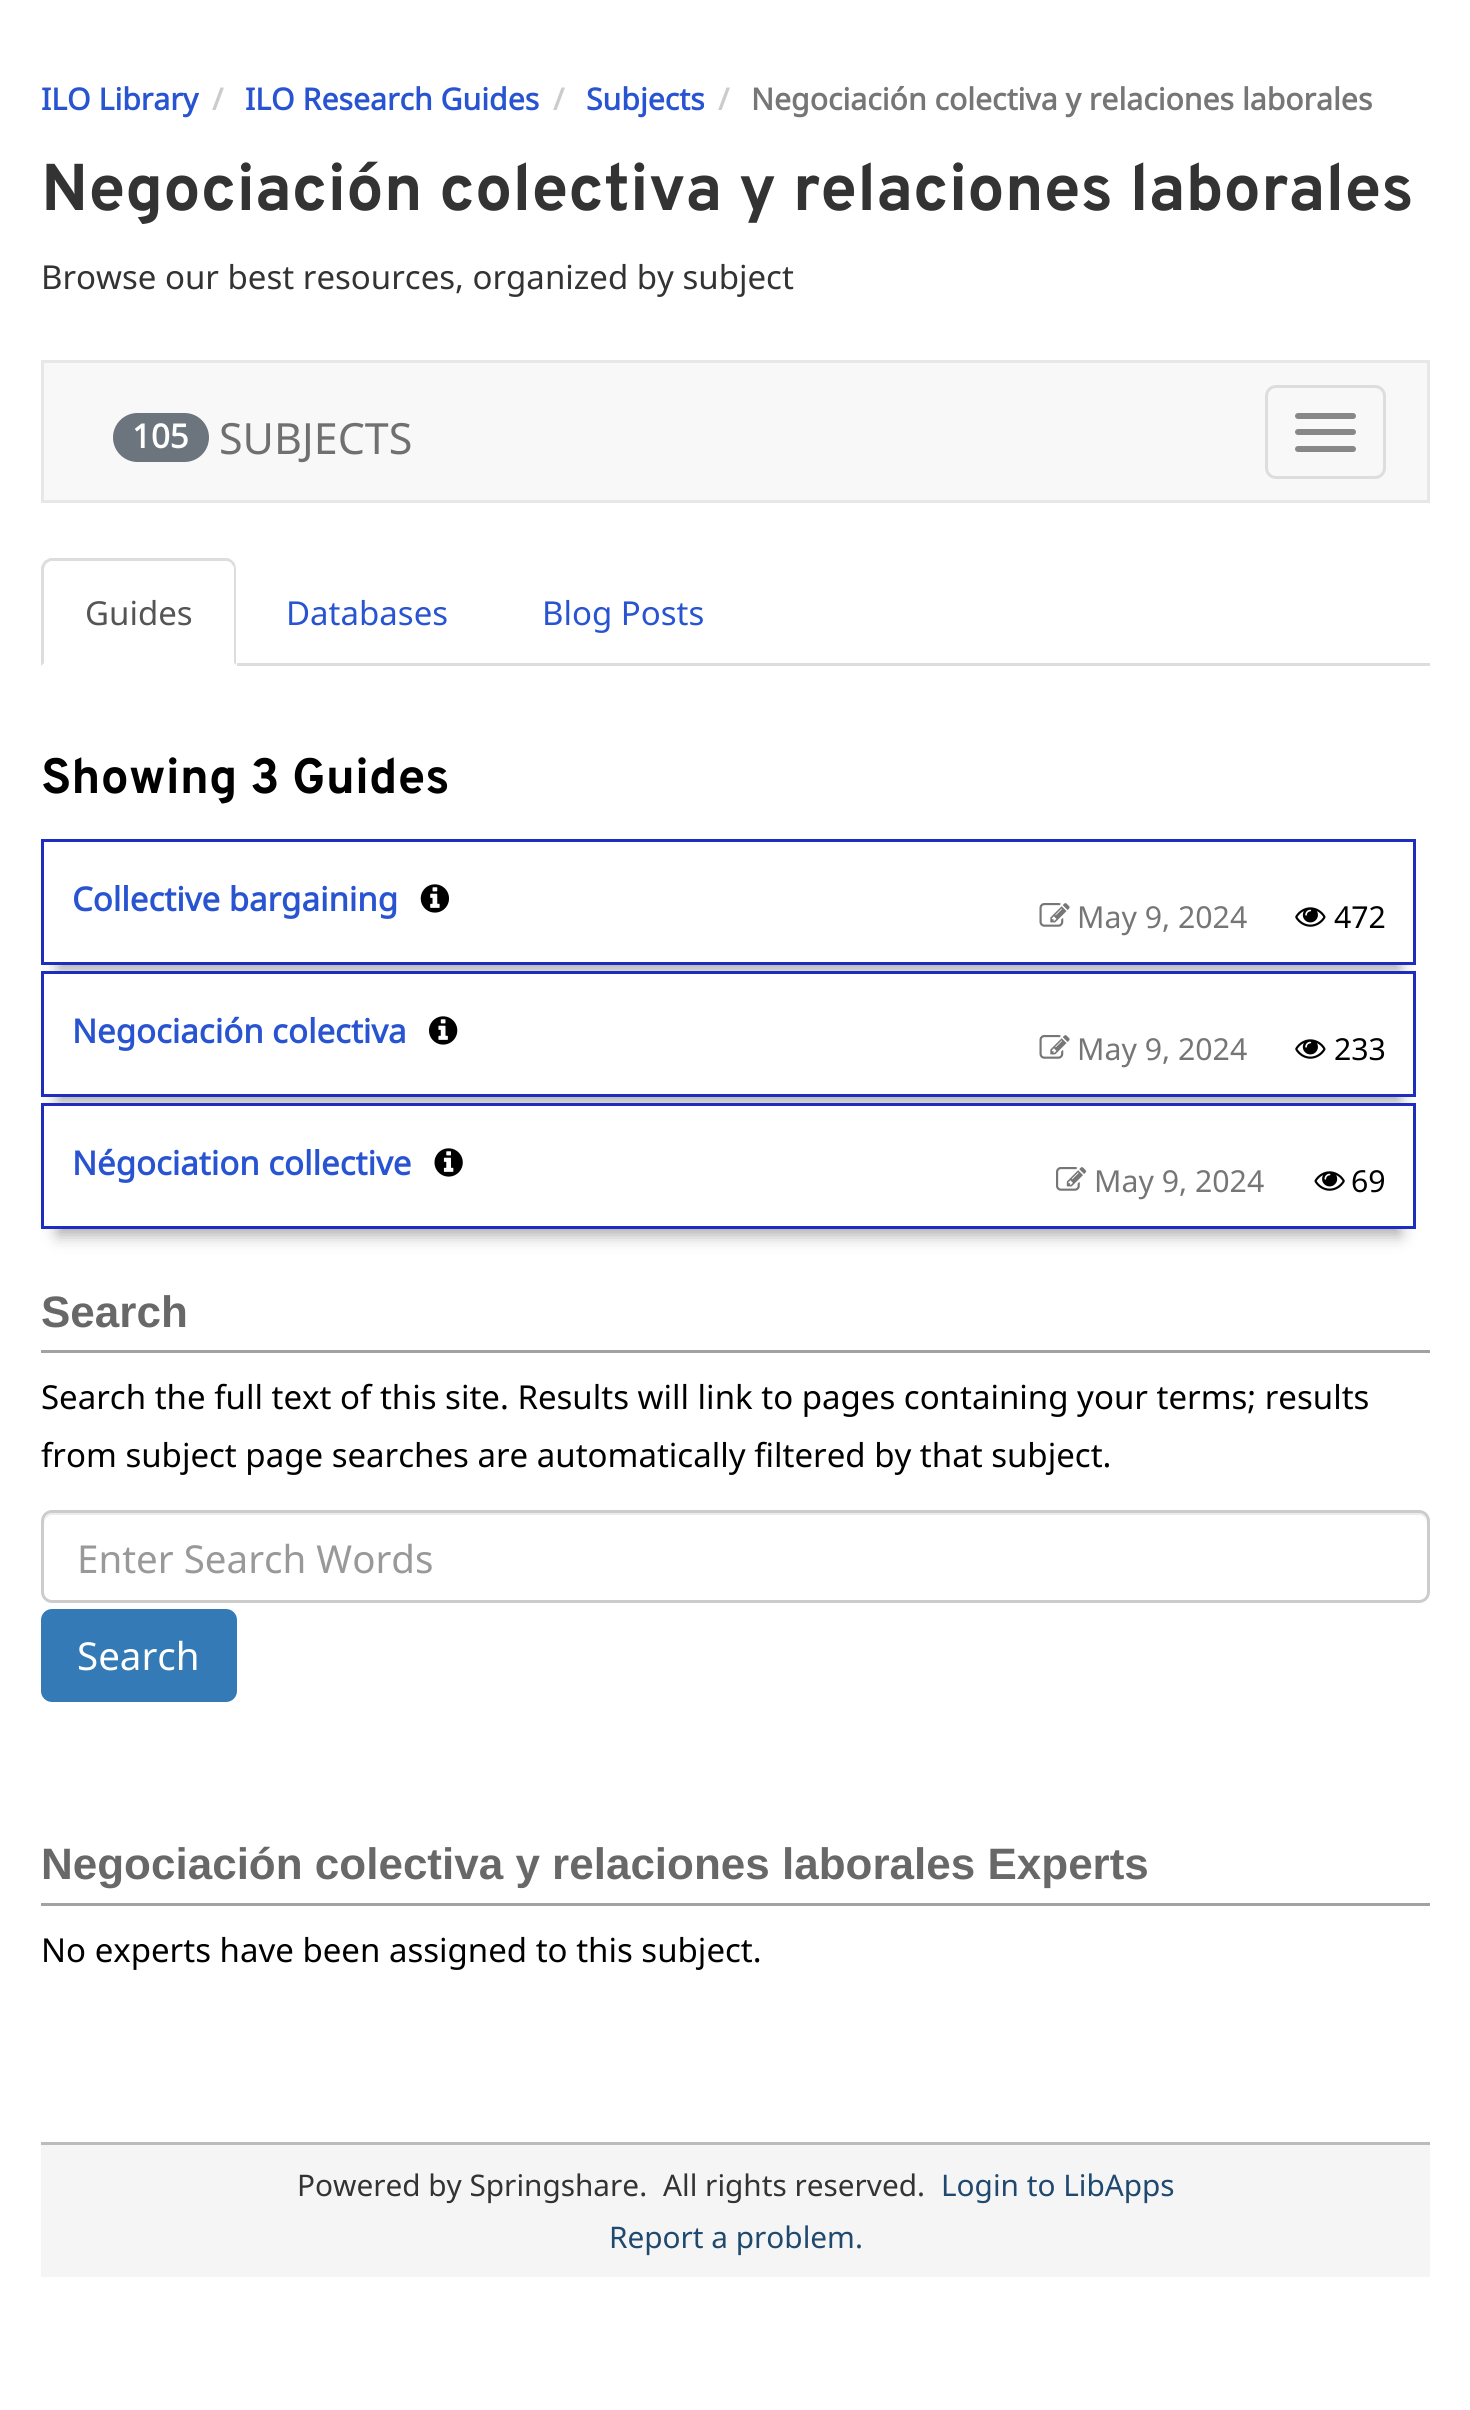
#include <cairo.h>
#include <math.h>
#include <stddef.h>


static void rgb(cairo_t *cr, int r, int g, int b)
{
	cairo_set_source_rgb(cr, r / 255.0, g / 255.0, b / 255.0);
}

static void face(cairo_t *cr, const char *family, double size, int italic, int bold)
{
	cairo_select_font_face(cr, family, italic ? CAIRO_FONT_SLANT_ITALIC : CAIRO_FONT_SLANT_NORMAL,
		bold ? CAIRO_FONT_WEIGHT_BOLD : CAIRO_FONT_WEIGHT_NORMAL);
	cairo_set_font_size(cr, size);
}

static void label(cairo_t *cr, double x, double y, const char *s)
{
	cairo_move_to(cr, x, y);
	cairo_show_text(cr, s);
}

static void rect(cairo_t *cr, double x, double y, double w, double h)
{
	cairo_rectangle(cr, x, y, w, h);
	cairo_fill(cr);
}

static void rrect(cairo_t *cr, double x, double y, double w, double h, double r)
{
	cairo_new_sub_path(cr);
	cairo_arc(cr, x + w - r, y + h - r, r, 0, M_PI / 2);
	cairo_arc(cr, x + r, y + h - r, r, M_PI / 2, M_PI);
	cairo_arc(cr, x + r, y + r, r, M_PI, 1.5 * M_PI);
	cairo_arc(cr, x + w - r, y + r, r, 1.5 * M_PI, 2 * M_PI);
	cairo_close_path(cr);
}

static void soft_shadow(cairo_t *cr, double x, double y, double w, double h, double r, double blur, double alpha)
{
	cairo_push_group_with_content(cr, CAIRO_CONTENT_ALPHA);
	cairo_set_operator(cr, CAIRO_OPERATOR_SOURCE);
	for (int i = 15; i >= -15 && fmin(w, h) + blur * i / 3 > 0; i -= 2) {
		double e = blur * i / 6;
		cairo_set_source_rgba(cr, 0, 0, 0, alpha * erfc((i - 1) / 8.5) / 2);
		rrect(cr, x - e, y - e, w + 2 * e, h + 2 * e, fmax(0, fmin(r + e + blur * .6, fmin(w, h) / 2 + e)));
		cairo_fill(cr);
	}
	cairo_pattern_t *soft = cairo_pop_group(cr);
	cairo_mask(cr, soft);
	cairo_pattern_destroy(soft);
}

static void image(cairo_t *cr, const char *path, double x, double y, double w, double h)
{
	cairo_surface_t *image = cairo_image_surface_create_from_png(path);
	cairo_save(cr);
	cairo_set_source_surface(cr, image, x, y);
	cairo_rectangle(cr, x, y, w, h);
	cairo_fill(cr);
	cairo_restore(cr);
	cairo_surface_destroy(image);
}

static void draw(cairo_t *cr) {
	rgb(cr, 255, 255, 255);
	cairo_paint(cr);
	face(cr, "Noto Sans", 30.25, 0, 1);
	rgb(cr, 41, 84, 209);
	label(cr, 41, 110, "ILO Library");
	rgb(cr, 204, 204, 204);
	label(cr, 212, 110, "/");
	rgb(cr, 41, 84, 209);
	label(cr, 245, 110, "ILO Research Guides");
	rgb(cr, 204, 204, 204);
	label(cr, 553, 110, "/");
	rgb(cr, 41, 84, 209);
	label(cr, 586, 110, "Subjects");
	rgb(cr, 204, 204, 204);
	label(cr, 718, 110, "/");
	rgb(cr, 118, 118, 118);
	label(cr, 751, 110, "Negociación colectiva y relaciones laborales");
	face(cr, "Overpass", 66, 0, 1);
	rgb(cr, 51, 51, 51);
	label(cr, 41, 210, "Negociación colectiva y relaciones laborales");
	face(cr, "Noto Sans", 33, 0, 0);
	label(cr, 41, 289, "Browse our best resources, organized by subject");
	rgb(cr, 248, 248, 248);
	cairo_rectangle(cr, 42.5, 361.5, 1386, 140);
	cairo_fill_preserve(cr);
	rgb(cr, 231, 231, 231);
	cairo_set_line_width(cr, 3);
	cairo_stroke(cr);
	rgb(cr, 108, 117, 125);
	rrect(cr, 113, 413, 96, 49, 24.5);
	cairo_fill(cr);
	face(cr, "Noto Sans", 33, 0, 1);
	rgb(cr, 255, 255, 255);
	label(cr, 132, 448, "105");
	face(cr, "Noto Sans", 43, 0, 0);
	rgb(cr, 112, 112, 112);
	label(cr, 219, 454, "SUBJECTS");
	rrect(cr, 1266.5, 386.5, 118, 91, 9.5);
	rgb(cr, 221, 221, 221);
	cairo_stroke(cr);
	rgb(cr, 136, 136, 136);
	rrect(cr, 1295, 413, 61, 6, 3);
	cairo_fill(cr);
	rrect(cr, 1295, 429, 61, 6, 3);
	cairo_fill(cr);
	rrect(cr, 1295, 446, 61, 6, 3);
	cairo_fill(cr);
	rgb(cr, 221, 221, 221);
	rect(cr, 237, 663, 1193, 3);
	cairo_new_path(cr);
	cairo_move_to(cr, 52, 561);
	cairo_curve_to(cr, 50, 561, 48, 562, 46, 564);
	cairo_line_to(cr, 44, 561);
	cairo_curve_to(cr, 46, 560, 48, 559, 50, 558);
	cairo_line_to(cr, 228, 558);
	cairo_curve_to(cr, 230, 559, 232, 560, 233, 561);
	cairo_line_to(cr, 231, 563);
	cairo_curve_to(cr, 230, 562, 228, 561, 226, 561);
	cairo_close_path(cr);
	cairo_fill(cr);
	cairo_new_path(cr);
	cairo_move_to(cr, 233, 561);
	cairo_curve_to(cr, 235, 563, 236, 566, 236, 569);
	cairo_line_to(cr, 236, 665);
	cairo_line_to(cr, 234, 663);
	cairo_line_to(cr, 234, 567);
	cairo_line_to(cr, 231, 563);
	cairo_close_path(cr);
	cairo_fill(cr);
	cairo_new_path(cr);
	cairo_move_to(cr, 41, 666);
	cairo_line_to(cr, 41, 567);
	cairo_curve_to(cr, 42, 565, 43, 563, 44, 561);
	cairo_line_to(cr, 46, 564);
	cairo_line_to(cr, 44, 568);
	cairo_line_to(cr, 44, 663);
	cairo_close_path(cr);
	cairo_fill(cr);
	face(cr, "Noto Sans", 33, 0, 0);
	rgb(cr, 85, 85, 85);
	label(cr, 85, 625, "Guides");
	rgb(cr, 41, 84, 209);
	label(cr, 286, 625, "Databases");
	label(cr, 542, 625, "Blog Posts");
	face(cr, "Overpass", 49.5, 0, 1);
	rgb(cr, 0, 0, 0);
	label(cr, 41, 793, "Showing 3 Guides");
	cairo_save(cr);
	cairo_rectangle(cr, 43, 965, 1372, 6);
	cairo_clip(cr);
	rgb(cr, 170, 170, 170);
	soft_shadow(cr, 58, 877, 1342, 94, 0, 8, 1);
	cairo_restore(cr);
	cairo_rectangle(cr, 42.5, 840.5, 1372, 123);
	rgb(cr, 30, 45, 190);
	cairo_stroke(cr);
	face(cr, "Noto Sans", 33, 0, 1);
	rgb(cr, 41, 84, 209);
	label(cr, 72, 911, "Collective bargaining");
	image(cr, "image0.png", 420, 884, 29, 29);
	image(cr, "image1.png", 1039, 903, 31, 24);
	face(cr, "Noto Sans", 30.25, 0, 0);
	rgb(cr, 118, 118, 118);
	label(cr, 1077, 928, "May 9, 2024");
	image(cr, "image2.png", 1295, 907, 31, 20);
	rgb(cr, 0, 0, 0);
	label(cr, 1334, 928, "472");
	rgb(cr, 170, 170, 170);
	soft_shadow(cr, 58, 1009, 1342, 94, 0, 8, 1);
	rgb(cr, 255, 255, 255);
	cairo_rectangle(cr, 42.5, 972.5, 1372, 123);
	cairo_fill_preserve(cr);
	rgb(cr, 30, 45, 190);
	cairo_stroke(cr);
	face(cr, "Noto Sans", 33, 0, 1);
	rgb(cr, 41, 84, 209);
	label(cr, 72, 1043, "Negociación colectiva");
	image(cr, "image3.png", 429, 1016, 29, 29);
	image(cr, "image1.png", 1039, 1035, 31, 24);
	face(cr, "Noto Sans", 30.25, 0, 0);
	rgb(cr, 118, 118, 118);
	label(cr, 1077, 1060, "May 9, 2024");
	image(cr, "image2.png", 1295, 1039, 31, 20);
	rgb(cr, 0, 0, 0);
	label(cr, 1334, 1060, "233");
	rgb(cr, 170, 170, 170);
	soft_shadow(cr, 58, 1141, 1342, 94, 0, 8, 1);
	rgb(cr, 255, 255, 255);
	cairo_rectangle(cr, 42.5, 1104.5, 1372, 123);
	cairo_fill_preserve(cr);
	rgb(cr, 30, 45, 190);
	cairo_stroke(cr);
	face(cr, "Noto Sans", 33, 0, 1);
	rgb(cr, 41, 84, 209);
	label(cr, 72, 1175, "Négociation collective");
	image(cr, "image4.png", 434, 1148, 29, 29);
	image(cr, "image5.png", 1056, 1167, 31, 24);
	face(cr, "Noto Sans", 30.25, 0, 0);
	rgb(cr, 118, 118, 118);
	label(cr, 1094, 1192, "May 9, 2024");
	image(cr, "image6.png", 1314, 1171, 31, 20);
	rgb(cr, 0, 0, 0);
	label(cr, 1351, 1192, "69");
	rgb(cr, 162, 162, 162);
	rect(cr, 41, 1350, 1389, 3);
	face(cr, "Liberation Sans", 44, 0, 1);
	rgb(cr, 104, 104, 104);
	label(cr, 41, 1327, "Search");
	face(cr, "Noto Sans", 33, 0, 0);
	rgb(cr, 0, 0, 0);
	label(cr, 41, 1409, "Search the full text of this site. Results will link to pages containing your terms; results");
	label(cr, 41, 1467, "from subject page searches are automatically filtered by that subject.");
	rgb(cr, 236, 236, 236);
	cairo_new_path(cr);
	cairo_move_to(cr, 52, 1515);
	cairo_line_to(cr, 1419, 1515);
	cairo_curve_to(cr, 1424, 1515, 1427, 1519, 1427, 1524);
	cairo_line_to(cr, 1427, 1521);
	cairo_curve_to(cr, 1427, 1517, 1423, 1513, 1419, 1513);
	cairo_line_to(cr, 52, 1513);
	cairo_curve_to(cr, 48, 1513, 44, 1517, 44, 1521);
	cairo_line_to(cr, 44, 1524);
	cairo_curve_to(cr, 44, 1519, 48, 1515, 52, 1515);
	cairo_close_path(cr);
	cairo_fill(cr);
	rrect(cr, 42.5, 1511.5, 1386, 90, 9.5);
	rgb(cr, 204, 204, 204);
	cairo_stroke(cr);
	face(cr, "Noto Sans", 38.5, 0, 0);
	rgb(cr, 153, 153, 153);
	label(cr, 77, 1573, "Enter Search Words");
	rgb(cr, 51, 122, 183);
	rrect(cr, 42.5, 1610.5, 193, 90, 9.5);
	cairo_fill_preserve(cr);
	cairo_stroke(cr);
	rgb(cr, 255, 255, 255);
	label(cr, 77, 1670, "Search");
	rgb(cr, 162, 162, 162);
	rect(cr, 41, 1903, 1389, 3);
	face(cr, "Liberation Sans", 44, 0, 1);
	rgb(cr, 104, 104, 104);
	label(cr, 41, 1879, "Negociación colectiva y relaciones laborales Experts");
	face(cr, "Noto Sans", 33, 0, 0);
	rgb(cr, 0, 0, 0);
	label(cr, 41, 1962, "No experts have been assigned to this subject.");
	rgb(cr, 245, 245, 245);
	rect(cr, 41, 2145, 1389, 132);
	rgb(cr, 187, 187, 187);
	rect(cr, 41, 2142, 1389, 3);
	face(cr, "Noto Sans", 29.75, 0, 0);
	rgb(cr, 51, 51, 51);
	label(cr, 297, 2196, "Powered by Springshare.");
	label(cr, 663, 2196, "All rights reserved.");
	rgb(cr, 31, 73, 110);
	label(cr, 941, 2196, "Login to LibApps");
	label(cr, 609, 2248, "Report a problem.");
}

int main(void) {
	cairo_surface_t *surface = cairo_image_surface_create(CAIRO_FORMAT_RGB24, 1470, 2410);
	cairo_t *cr = cairo_create(surface);
	cairo_font_options_t *options = cairo_font_options_create();
	cairo_font_options_set_hint_metrics(options, CAIRO_HINT_METRICS_OFF);
	cairo_font_options_set_hint_style(options, CAIRO_HINT_STYLE_NONE);
	cairo_set_font_options(cr, options);
	cairo_set_miter_limit(cr, 4);
	draw(cr);
	cairo_surface_write_to_png(surface, "render.png");
	cairo_font_options_destroy(options);
	cairo_destroy(cr);
	cairo_surface_destroy(surface);
	return 0;
}
